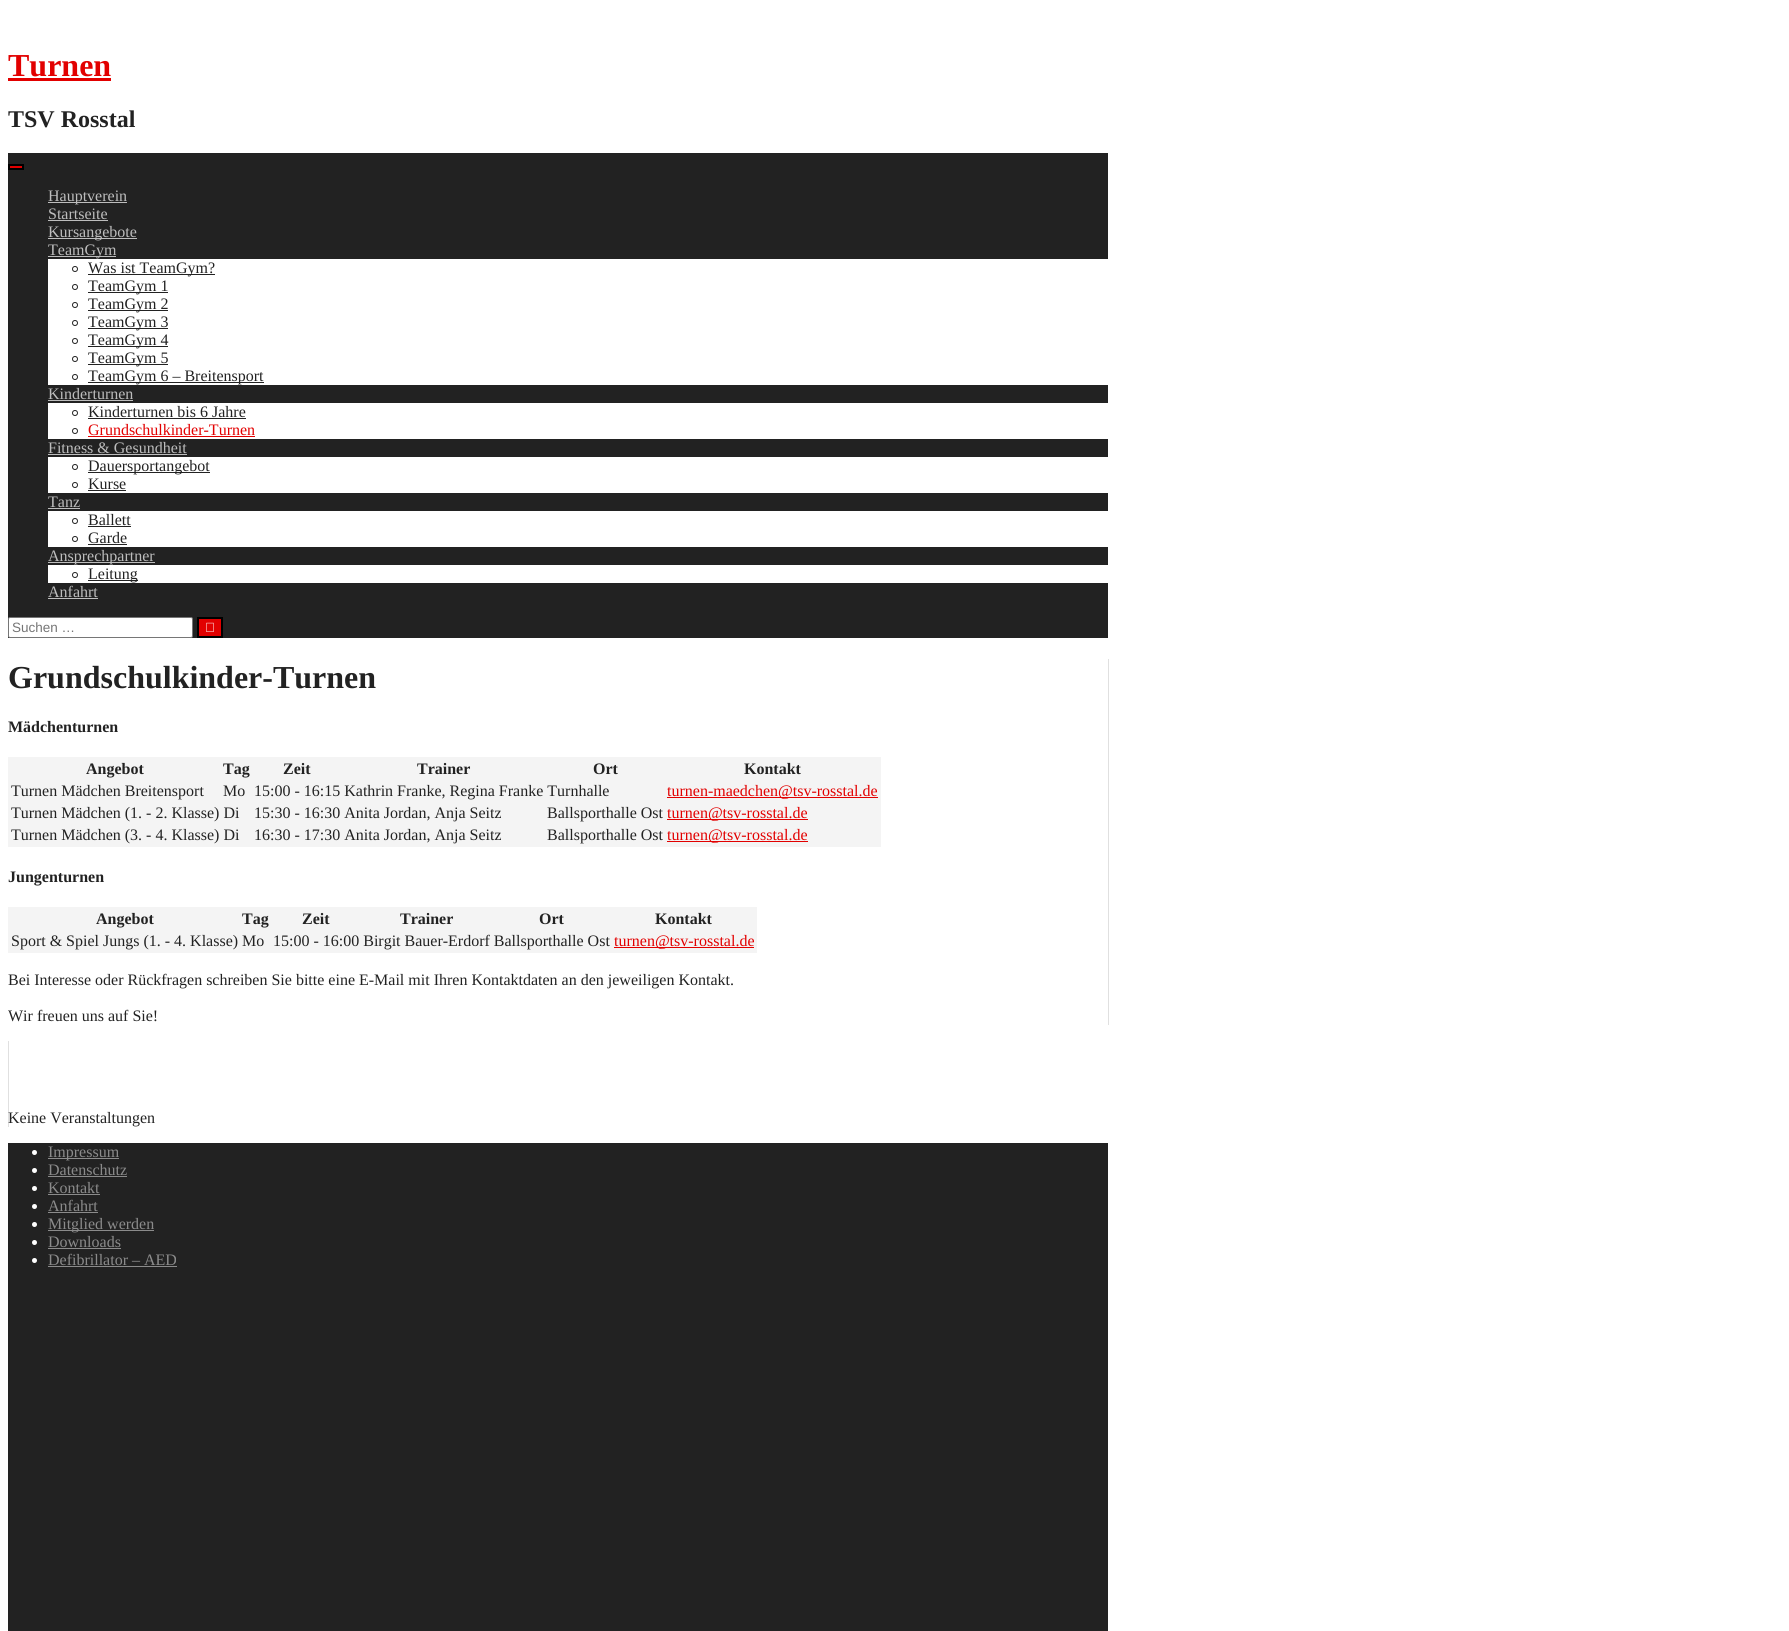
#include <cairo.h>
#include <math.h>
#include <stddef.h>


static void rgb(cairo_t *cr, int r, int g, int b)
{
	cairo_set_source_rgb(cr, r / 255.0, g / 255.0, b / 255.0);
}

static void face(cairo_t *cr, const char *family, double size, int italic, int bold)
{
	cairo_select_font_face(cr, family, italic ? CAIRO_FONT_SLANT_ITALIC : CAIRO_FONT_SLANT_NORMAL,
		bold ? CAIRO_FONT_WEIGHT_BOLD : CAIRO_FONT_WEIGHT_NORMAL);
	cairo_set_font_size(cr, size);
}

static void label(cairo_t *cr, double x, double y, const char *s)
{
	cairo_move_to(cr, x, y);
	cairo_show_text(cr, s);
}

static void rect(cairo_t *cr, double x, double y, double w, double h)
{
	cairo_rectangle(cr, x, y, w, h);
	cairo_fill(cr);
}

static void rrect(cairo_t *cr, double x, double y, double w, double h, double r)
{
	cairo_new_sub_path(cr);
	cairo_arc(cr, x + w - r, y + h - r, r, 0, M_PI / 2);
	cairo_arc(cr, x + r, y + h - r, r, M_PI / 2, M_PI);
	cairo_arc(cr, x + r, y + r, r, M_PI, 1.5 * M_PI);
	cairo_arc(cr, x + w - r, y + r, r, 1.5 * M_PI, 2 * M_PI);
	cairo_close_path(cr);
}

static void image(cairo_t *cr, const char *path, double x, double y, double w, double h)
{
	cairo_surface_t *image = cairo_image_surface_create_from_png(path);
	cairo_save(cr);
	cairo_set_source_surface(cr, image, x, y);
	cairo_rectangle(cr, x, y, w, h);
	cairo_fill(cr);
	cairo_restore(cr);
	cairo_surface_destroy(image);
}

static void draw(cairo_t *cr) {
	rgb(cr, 255, 255, 255);
	cairo_paint(cr);
	face(cr, "Liberation Serif", 32, 0, 1);
	rgb(cr, 226, 0, 0);
	label(cr, 8, 76, "Turnen");
	rect(cr, 8, 78, 103, 3);
	face(cr, "Liberation Serif", 24, 0, 1);
	rgb(cr, 34, 34, 34);
	label(cr, 8, 127, "TSV Rosstal");
	rect(cr, 8, 153, 1100, 485);
	rgb(cr, 226, 0, 0);
	cairo_rectangle(cr, 9, 165, 14, 4);
	cairo_fill_preserve(cr);
	rgb(cr, 0, 0, 0);
	cairo_stroke(cr);
	rgb(cr, 189, 189, 189);
	rect(cr, 48, 202, 79, 1);
	face(cr, "Liberation Serif", 16, 0, 0);
	label(cr, 48, 201, "Hauptverein");
	label(cr, 48, 219, "Startseite");
	rect(cr, 48, 220, 60, 1);
	rect(cr, 48, 238, 89, 1);
	label(cr, 48, 237, "Kursangebote");
	rect(cr, 48, 256, 68, 1);
	label(cr, 48, 255, "TeamGym");
	rgb(cr, 255, 255, 255);
	rect(cr, 48, 259, 1060, 126);
	cairo_new_path(cr);
	cairo_arc(cr, 75, 269, 2.5, 0, 2 * M_PI);
	rgb(cr, 34, 34, 34);
	cairo_set_line_width(cr, 1);
	cairo_stroke(cr);
	rect(cr, 88, 274, 127, 1);
	label(cr, 88, 273, "Was ist TeamGym?");
	cairo_new_path(cr);
	cairo_arc(cr, 75, 287, 2.5, 0, 2 * M_PI);
	cairo_stroke(cr);
	rect(cr, 88, 292, 80, 1);
	label(cr, 88, 291, "TeamGym 1");
	cairo_new_path(cr);
	cairo_arc(cr, 75, 305, 2.5, 0, 2 * M_PI);
	cairo_stroke(cr);
	rect(cr, 88, 310, 80, 1);
	label(cr, 88, 309, "TeamGym 2");
	cairo_new_path(cr);
	cairo_arc(cr, 75, 323, 2.5, 0, 2 * M_PI);
	cairo_stroke(cr);
	rect(cr, 88, 328, 80, 1);
	label(cr, 88, 327, "TeamGym 3");
	cairo_new_path(cr);
	cairo_arc(cr, 75, 341, 2.5, 0, 2 * M_PI);
	cairo_stroke(cr);
	rect(cr, 88, 346, 80, 1);
	label(cr, 88, 345, "TeamGym 4");
	cairo_new_path(cr);
	cairo_arc(cr, 75, 359, 2.5, 0, 2 * M_PI);
	cairo_stroke(cr);
	rect(cr, 88, 364, 80, 1);
	label(cr, 88, 363, "TeamGym 5");
	cairo_new_path(cr);
	cairo_arc(cr, 75, 377, 2.5, 0, 2 * M_PI);
	cairo_stroke(cr);
	rect(cr, 88, 382, 176, 1);
	label(cr, 88, 381, "TeamGym 6 – Breitensport");
	rgb(cr, 189, 189, 189);
	label(cr, 48, 399, "Kinderturnen");
	rect(cr, 48, 400, 85, 1);
	rgb(cr, 255, 255, 255);
	rect(cr, 48, 403, 1060, 36);
	cairo_new_path(cr);
	cairo_arc(cr, 75, 413, 2.5, 0, 2 * M_PI);
	rgb(cr, 34, 34, 34);
	cairo_stroke(cr);
	label(cr, 88, 417, "Kinderturnen bis 6 Jahre");
	rect(cr, 88, 418, 158, 1);
	cairo_new_path(cr);
	cairo_arc(cr, 75, 431, 2.5, 0, 2 * M_PI);
	cairo_stroke(cr);
	rgb(cr, 226, 0, 0);
	label(cr, 88, 435, "Grundschulkinder-Turnen");
	rect(cr, 88, 436, 167, 1);
	rgb(cr, 189, 189, 189);
	label(cr, 48, 453, "Fitness & Gesundheit");
	rect(cr, 48, 454, 139, 1);
	rgb(cr, 255, 255, 255);
	rect(cr, 48, 457, 1060, 36);
	cairo_new_path(cr);
	cairo_arc(cr, 75, 467, 2.5, 0, 2 * M_PI);
	rgb(cr, 34, 34, 34);
	cairo_stroke(cr);
	rect(cr, 88, 472, 122, 1);
	label(cr, 88, 471, "Dauersportangebot");
	cairo_new_path(cr);
	cairo_arc(cr, 75, 485, 2.5, 0, 2 * M_PI);
	cairo_stroke(cr);
	label(cr, 88, 489, "Kurse");
	rect(cr, 88, 490, 38, 1);
	rgb(cr, 189, 189, 189);
	label(cr, 48, 507, "Tanz");
	rect(cr, 48, 508, 32, 1);
	rgb(cr, 255, 255, 255);
	rect(cr, 48, 511, 1060, 36);
	cairo_new_path(cr);
	cairo_arc(cr, 75, 521, 2.5, 0, 2 * M_PI);
	rgb(cr, 34, 34, 34);
	cairo_stroke(cr);
	label(cr, 88, 525, "Ballett");
	rect(cr, 88, 526, 43, 1);
	cairo_new_path(cr);
	cairo_arc(cr, 75, 539, 2.5, 0, 2 * M_PI);
	cairo_stroke(cr);
	label(cr, 88, 543, "Garde");
	rect(cr, 88, 544, 39, 1);
	rgb(cr, 189, 189, 189);
	rect(cr, 48, 562, 107, 1);
	label(cr, 48, 561, "Ansprechpartner");
	rgb(cr, 255, 255, 255);
	rect(cr, 48, 565, 1060, 18);
	cairo_new_path(cr);
	cairo_arc(cr, 75, 575, 2.5, 0, 2 * M_PI);
	rgb(cr, 34, 34, 34);
	cairo_stroke(cr);
	rect(cr, 88, 580, 50, 1);
	label(cr, 88, 579, "Leitung");
	rgb(cr, 189, 189, 189);
	label(cr, 48, 597, "Anfahrt");
	rect(cr, 48, 598, 50, 1);
	rgb(cr, 255, 255, 255);
	rrect(cr, 8.5, 617.5, 184, 20, 1.5);
	cairo_fill_preserve(cr);
	rgb(cr, 118, 118, 118);
	cairo_stroke(cr);
	face(cr, "Liberation Sans", 13.5, 0, 0);
	rgb(cr, 117, 117, 117);
	label(cr, 12, 632, "Suchen …");
	rgb(cr, 226, 0, 0);
	cairo_rectangle(cr, 198, 618, 24, 19);
	cairo_fill_preserve(cr);
	rgb(cr, 0, 0, 0);
	cairo_set_line_width(cr, 2);
	cairo_stroke(cr);
	image(cr, "image0.png", 206, 622, 8, 10);
	rgb(cr, 224, 224, 224);
	rect(cr, 1108, 659, 1, 366);
	face(cr, "Liberation Serif", 32, 0, 1);
	rgb(cr, 34, 34, 34);
	label(cr, 8, 688, "Grundschulkinder-Turnen");
	face(cr, "Liberation Serif", 16, 0, 1);
	label(cr, 8, 732, "Mädchenturnen");
	rgb(cr, 244, 244, 244);
	rect(cr, 8, 757, 873, 90);
	rgb(cr, 34, 34, 34);
	label(cr, 86, 774, "Angebot");
	label(cr, 223, 774, "Tag");
	label(cr, 283, 774, "Zeit");
	label(cr, 417, 774, "Trainer");
	label(cr, 593, 774, "Ort");
	label(cr, 744, 774, "Kontakt");
	face(cr, "Liberation Serif", 16, 0, 0);
	label(cr, 11, 796, "Turnen Mädchen Breitensport");
	label(cr, 223, 796, "Mo");
	label(cr, 254, 796, "15:00 - 16:15 Kathrin Franke, Regina Franke Turnhalle");
	rgb(cr, 226, 0, 0);
	rect(cr, 667, 797, 211, 1);
	label(cr, 667, 796, "turnen-maedchen@tsv-rosstal.de");
	rgb(cr, 34, 34, 34);
	label(cr, 11, 818, "Turnen Mädchen (1. - 2. Klasse) Di");
	label(cr, 254, 818, "15:30 - 16:30 Anita Jordan, Anja Seitz");
	label(cr, 547, 818, "Ballsporthalle Ost");
	rgb(cr, 226, 0, 0);
	rect(cr, 667, 819, 141, 1);
	label(cr, 667, 818, "turnen@tsv-rosstal.de");
	rgb(cr, 34, 34, 34);
	label(cr, 11, 840, "Turnen Mädchen (3. - 4. Klasse) Di");
	label(cr, 254, 840, "16:30 - 17:30 Anita Jordan, Anja Seitz");
	label(cr, 547, 840, "Ballsporthalle Ost");
	rgb(cr, 226, 0, 0);
	rect(cr, 667, 841, 141, 1);
	label(cr, 667, 840, "turnen@tsv-rosstal.de");
	face(cr, "Liberation Serif", 16, 0, 1);
	rgb(cr, 34, 34, 34);
	label(cr, 8, 882, "Jungenturnen");
	rgb(cr, 244, 244, 244);
	rect(cr, 8, 907, 749, 46);
	rgb(cr, 34, 34, 34);
	label(cr, 96, 924, "Angebot");
	label(cr, 242, 924, "Tag");
	label(cr, 302, 924, "Zeit");
	label(cr, 400, 924, "Trainer");
	label(cr, 539, 924, "Ort");
	label(cr, 655, 924, "Kontakt");
	face(cr, "Liberation Serif", 16, 0, 0);
	label(cr, 11, 946, "Sport & Spiel Jungs (1. - 4. Klasse) Mo");
	label(cr, 273, 946, "15:00 - 16:00 Birgit Bauer-Erdorf Ballsporthalle Ost");
	rgb(cr, 226, 0, 0);
	rect(cr, 614, 947, 140, 1);
	label(cr, 614, 946, "turnen@tsv-rosstal.de");
	rgb(cr, 34, 34, 34);
	label(cr, 8, 985, "Bei Interesse oder Rückfragen schreiben Sie bitte eine E-Mail mit Ihren Kontaktdaten an den jeweiligen Kontakt.");
	label(cr, 8, 1021, "Wir freuen uns auf Sie!");
	rgb(cr, 224, 224, 224);
	rect(cr, 8, 1041, 1, 86);
	rgb(cr, 34, 34, 34);
	label(cr, 8, 1123, "Keine Veranstaltungen");
	rect(cr, 8, 1143, 1100, 488);
	rgb(cr, 255, 255, 255);
	cairo_new_path(cr);
	cairo_arc(cr, 34.5, 1152.5, 2.5, 0, 2 * M_PI);
	cairo_fill(cr);
	rgb(cr, 139, 139, 139);
	rect(cr, 48, 1158, 71, 1);
	label(cr, 48, 1157, "Impressum");
	rgb(cr, 255, 255, 255);
	cairo_new_path(cr);
	cairo_arc(cr, 34.5, 1170.5, 2.5, 0, 2 * M_PI);
	cairo_fill(cr);
	rgb(cr, 139, 139, 139);
	label(cr, 48, 1175, "Datenschutz");
	rect(cr, 48, 1176, 79, 1);
	rgb(cr, 255, 255, 255);
	cairo_new_path(cr);
	cairo_arc(cr, 34.5, 1188.5, 2.5, 0, 2 * M_PI);
	cairo_fill(cr);
	rgb(cr, 139, 139, 139);
	label(cr, 48, 1193, "Kontakt");
	rect(cr, 48, 1194, 52, 1);
	rgb(cr, 255, 255, 255);
	cairo_new_path(cr);
	cairo_arc(cr, 34.5, 1206.5, 2.5, 0, 2 * M_PI);
	cairo_fill(cr);
	rgb(cr, 139, 139, 139);
	label(cr, 48, 1211, "Anfahrt");
	rect(cr, 48, 1212, 50, 1);
	rgb(cr, 255, 255, 255);
	cairo_new_path(cr);
	cairo_arc(cr, 34.5, 1224.5, 2.5, 0, 2 * M_PI);
	cairo_fill(cr);
	rgb(cr, 139, 139, 139);
	rect(cr, 48, 1230, 106, 1);
	label(cr, 48, 1229, "Mitglied werden");
	rgb(cr, 255, 255, 255);
	cairo_new_path(cr);
	cairo_arc(cr, 34.5, 1242.5, 2.5, 0, 2 * M_PI);
	cairo_fill(cr);
	rgb(cr, 139, 139, 139);
	label(cr, 48, 1247, "Downloads");
	rect(cr, 48, 1248, 73, 1);
	rgb(cr, 255, 255, 255);
	cairo_new_path(cr);
	cairo_arc(cr, 34.5, 1260.5, 2.5, 0, 2 * M_PI);
	cairo_fill(cr);
	rgb(cr, 139, 139, 139);
	label(cr, 48, 1265, "Defibrillator – AED");
	rect(cr, 48, 1266, 129, 1);
}

int main(void) {
	cairo_surface_t *surface = cairo_image_surface_create(CAIRO_FORMAT_RGB24, 1789, 1631);
	cairo_t *cr = cairo_create(surface);
	cairo_font_options_t *options = cairo_font_options_create();
	cairo_font_options_set_hint_metrics(options, CAIRO_HINT_METRICS_OFF);
	cairo_font_options_set_hint_style(options, CAIRO_HINT_STYLE_NONE);
	cairo_set_font_options(cr, options);
	cairo_set_miter_limit(cr, 4);
	draw(cr);
	cairo_surface_write_to_png(surface, "render.png");
	cairo_font_options_destroy(options);
	cairo_destroy(cr);
	cairo_surface_destroy(surface);
	return 0;
}
